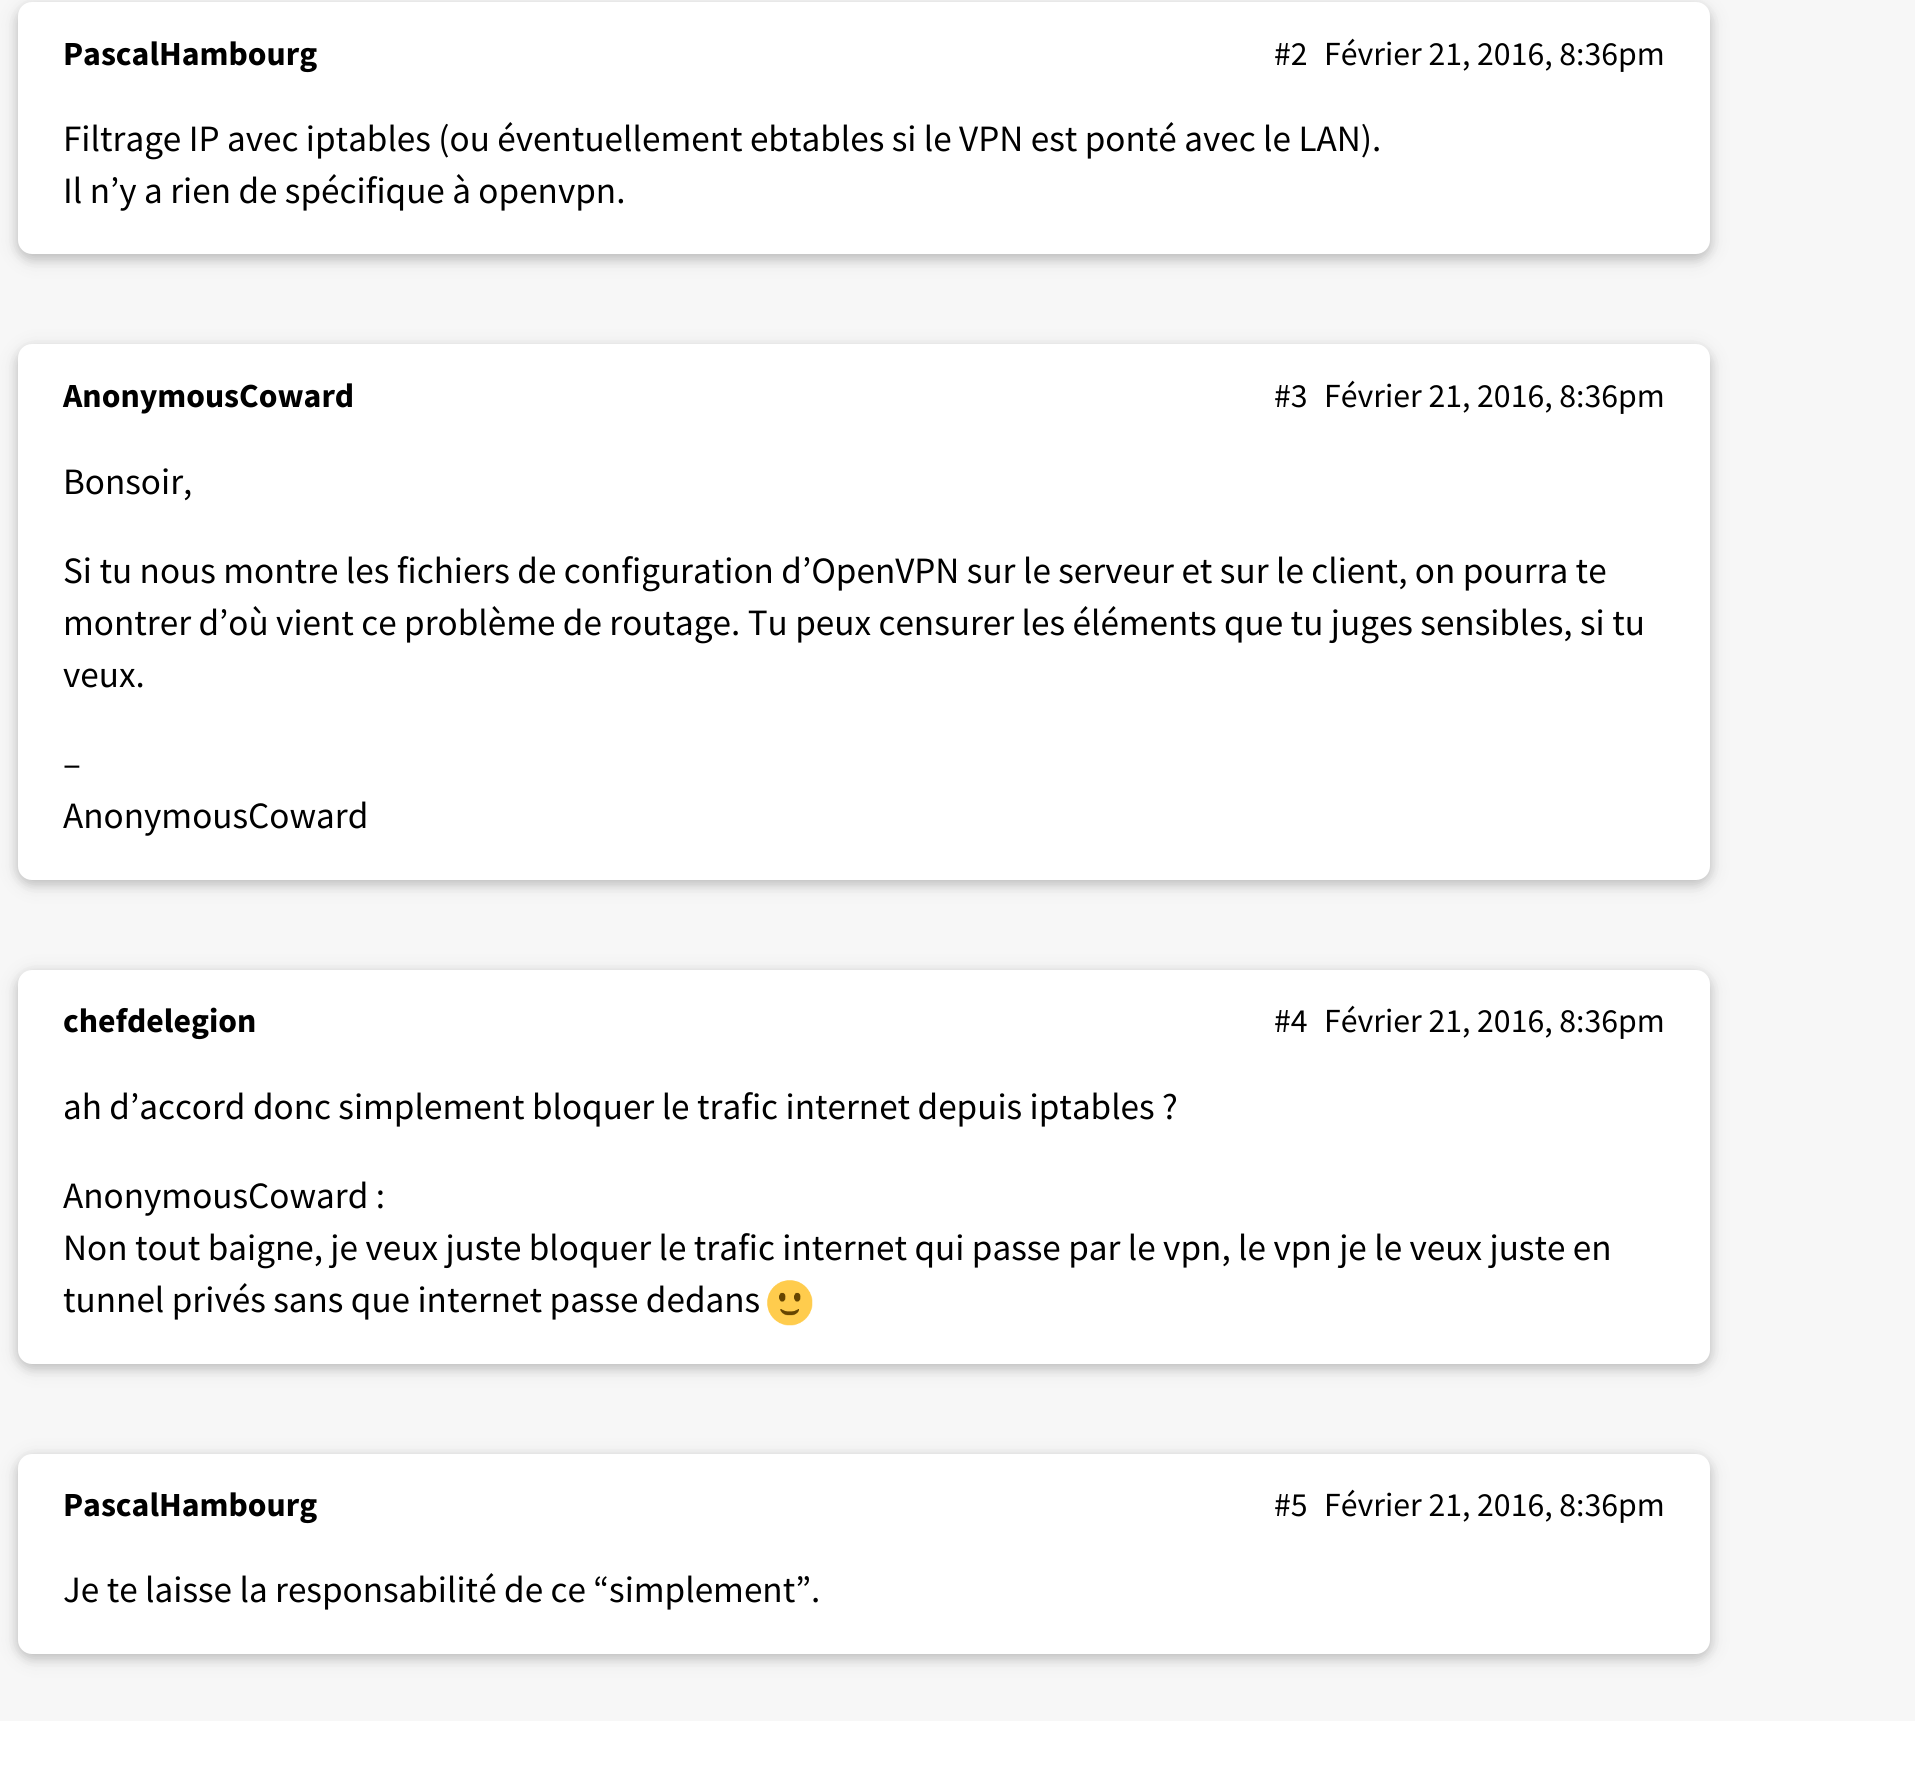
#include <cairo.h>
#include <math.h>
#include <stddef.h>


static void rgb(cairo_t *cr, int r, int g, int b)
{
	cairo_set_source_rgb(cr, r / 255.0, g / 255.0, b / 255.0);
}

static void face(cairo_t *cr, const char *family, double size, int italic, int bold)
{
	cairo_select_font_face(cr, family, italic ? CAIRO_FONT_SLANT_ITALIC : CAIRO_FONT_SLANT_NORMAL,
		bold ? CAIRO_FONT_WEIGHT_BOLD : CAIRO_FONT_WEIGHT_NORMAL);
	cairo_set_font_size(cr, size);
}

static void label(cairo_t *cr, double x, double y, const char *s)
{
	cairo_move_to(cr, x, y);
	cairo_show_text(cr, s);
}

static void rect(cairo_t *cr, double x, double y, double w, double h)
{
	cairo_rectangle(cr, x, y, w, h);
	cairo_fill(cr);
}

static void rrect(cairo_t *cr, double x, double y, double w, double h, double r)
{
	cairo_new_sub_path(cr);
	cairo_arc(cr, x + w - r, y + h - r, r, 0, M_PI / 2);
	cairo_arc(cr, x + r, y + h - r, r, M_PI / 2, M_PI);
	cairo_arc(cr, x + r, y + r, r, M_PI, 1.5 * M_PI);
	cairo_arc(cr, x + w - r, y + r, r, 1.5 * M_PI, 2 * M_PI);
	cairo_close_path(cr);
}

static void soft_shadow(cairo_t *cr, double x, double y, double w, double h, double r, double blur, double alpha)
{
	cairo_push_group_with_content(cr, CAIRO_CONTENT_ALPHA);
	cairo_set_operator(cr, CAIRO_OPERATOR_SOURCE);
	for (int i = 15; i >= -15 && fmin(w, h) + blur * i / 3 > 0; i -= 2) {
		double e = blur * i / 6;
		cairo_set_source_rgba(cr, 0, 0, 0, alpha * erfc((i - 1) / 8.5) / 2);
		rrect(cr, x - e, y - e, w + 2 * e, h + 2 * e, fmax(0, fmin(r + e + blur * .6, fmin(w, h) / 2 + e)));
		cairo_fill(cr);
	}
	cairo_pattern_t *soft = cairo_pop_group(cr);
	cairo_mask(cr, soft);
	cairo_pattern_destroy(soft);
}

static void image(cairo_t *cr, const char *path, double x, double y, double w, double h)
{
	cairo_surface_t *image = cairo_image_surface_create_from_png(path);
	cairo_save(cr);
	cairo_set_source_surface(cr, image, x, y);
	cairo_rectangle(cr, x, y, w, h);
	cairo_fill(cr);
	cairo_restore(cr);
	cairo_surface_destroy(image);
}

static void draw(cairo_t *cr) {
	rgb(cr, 255, 255, 255);
	cairo_paint(cr);
	rgb(cr, 247, 247, 247);
	rect(cr, 0, 0, 1915, 1721);
	rgb(cr, 0, 0, 0);
	soft_shadow(cr, 18, 7, 1692, 252, 14, 11, 0.12);
	soft_shadow(cr, 18, 7, 1692, 252, 14, 5.5, 0.16);
	rgb(cr, 255, 255, 255);
	rrect(cr, 18, 2, 1692, 252, 14);
	cairo_fill(cr);
	face(cr, "Source Sans Pro", 33.75, 0, 1);
	rgb(cr, 0, 0, 0);
	label(cr, 63, 65, "PascalHambourg");
	face(cr, "Source Sans Pro", 33.75, 0, 0);
	label(cr, 1274, 65, "#2");
	label(cr, 1324, 65, "Février 21, 2016, 8:36pm");
	face(cr, "Source Sans Pro", 37.15, 0, 0);
	label(cr, 63, 151, "Filtrage IP avec iptables (ou éventuellement ebtables si le VPN est ponté avec le LAN).");
	label(cr, 63, 203, "Il n’y a rien de spécifique à openvpn.");
	rgb(cr, 0, 0, 0);
	soft_shadow(cr, 18, 349, 1692, 535, 14, 11, 0.12);
	soft_shadow(cr, 18, 349, 1692, 535, 14, 5.5, 0.16);
	rgb(cr, 255, 255, 255);
	rrect(cr, 18, 344, 1692, 536, 14);
	cairo_fill(cr);
	face(cr, "Source Sans Pro", 33.75, 0, 1);
	rgb(cr, 0, 0, 0);
	label(cr, 63, 407, "AnonymousCoward");
	face(cr, "Source Sans Pro", 33.75, 0, 0);
	label(cr, 1274, 407, "#3");
	label(cr, 1324, 407, "Février 21, 2016, 8:36pm");
	face(cr, "Source Sans Pro", 37.15, 0, 0);
	label(cr, 63, 494, "Bonsoir,");
	label(cr, 63, 583, "Si tu nous montre les fichiers de configuration d’OpenVPN sur le serveur et sur le client, on pourra te");
	label(cr, 63, 635, "montrer d’où vient ce problème de routage. Tu peux censurer les éléments que tu juges sensibles, si tu");
	label(cr, 63, 687, "veux.");
	label(cr, 63, 776, "–");
	label(cr, 63, 828, "AnonymousCoward");
	rgb(cr, 0, 0, 0);
	soft_shadow(cr, 18, 974, 1692, 394, 14, 11, 0.12);
	soft_shadow(cr, 18, 974, 1692, 394, 14, 5.5, 0.16);
	rgb(cr, 255, 255, 255);
	rrect(cr, 18, 970, 1692, 394, 14);
	cairo_fill(cr);
	face(cr, "Source Sans Pro", 33.75, 0, 1);
	rgb(cr, 0, 0, 0);
	label(cr, 63, 1032, "chefdelegion");
	face(cr, "Source Sans Pro", 33.75, 0, 0);
	label(cr, 1274, 1032, "#4");
	label(cr, 1324, 1032, "Février 21, 2016, 8:36pm");
	face(cr, "Source Sans Pro", 37.15, 0, 0);
	label(cr, 63, 1119, "ah d’accord donc simplement bloquer le trafic internet depuis iptables ?");
	label(cr, 63, 1208, "AnonymousCoward :");
	label(cr, 63, 1260, "Non tout baigne, je veux juste bloquer le trafic internet qui passe par le vpn, le vpn je le veux juste en");
	label(cr, 63, 1312, "tunnel privés sans que internet passe dedans");
	image(cr, "image0.png", 767, 1280, 46, 46);
	rgb(cr, 0, 0, 0);
	soft_shadow(cr, 18, 1458, 1692, 200, 14, 11, 0.12);
	soft_shadow(cr, 18, 1458, 1692, 200, 14, 5.5, 0.16);
	rgb(cr, 255, 255, 255);
	rrect(cr, 18, 1454, 1692, 200, 14);
	cairo_fill(cr);
	face(cr, "Source Sans Pro", 33.75, 0, 1);
	rgb(cr, 0, 0, 0);
	label(cr, 63, 1516, "PascalHambourg");
	face(cr, "Source Sans Pro", 33.75, 0, 0);
	label(cr, 1274, 1516, "#5");
	label(cr, 1324, 1516, "Février 21, 2016, 8:36pm");
	face(cr, "Source Sans Pro", 37.15, 0, 0);
	label(cr, 63, 1602, "Je te laisse la responsabilité de ce “simplement”.");
}

int main(void) {
	cairo_surface_t *surface = cairo_image_surface_create(CAIRO_FORMAT_RGB24, 1915, 1792);
	cairo_t *cr = cairo_create(surface);
	cairo_font_options_t *options = cairo_font_options_create();
	cairo_font_options_set_hint_metrics(options, CAIRO_HINT_METRICS_OFF);
	cairo_font_options_set_hint_style(options, CAIRO_HINT_STYLE_NONE);
	cairo_set_font_options(cr, options);
	cairo_set_miter_limit(cr, 4);
	draw(cr);
	cairo_surface_write_to_png(surface, "render.png");
	cairo_font_options_destroy(options);
	cairo_destroy(cr);
	cairo_surface_destroy(surface);
	return 0;
}
